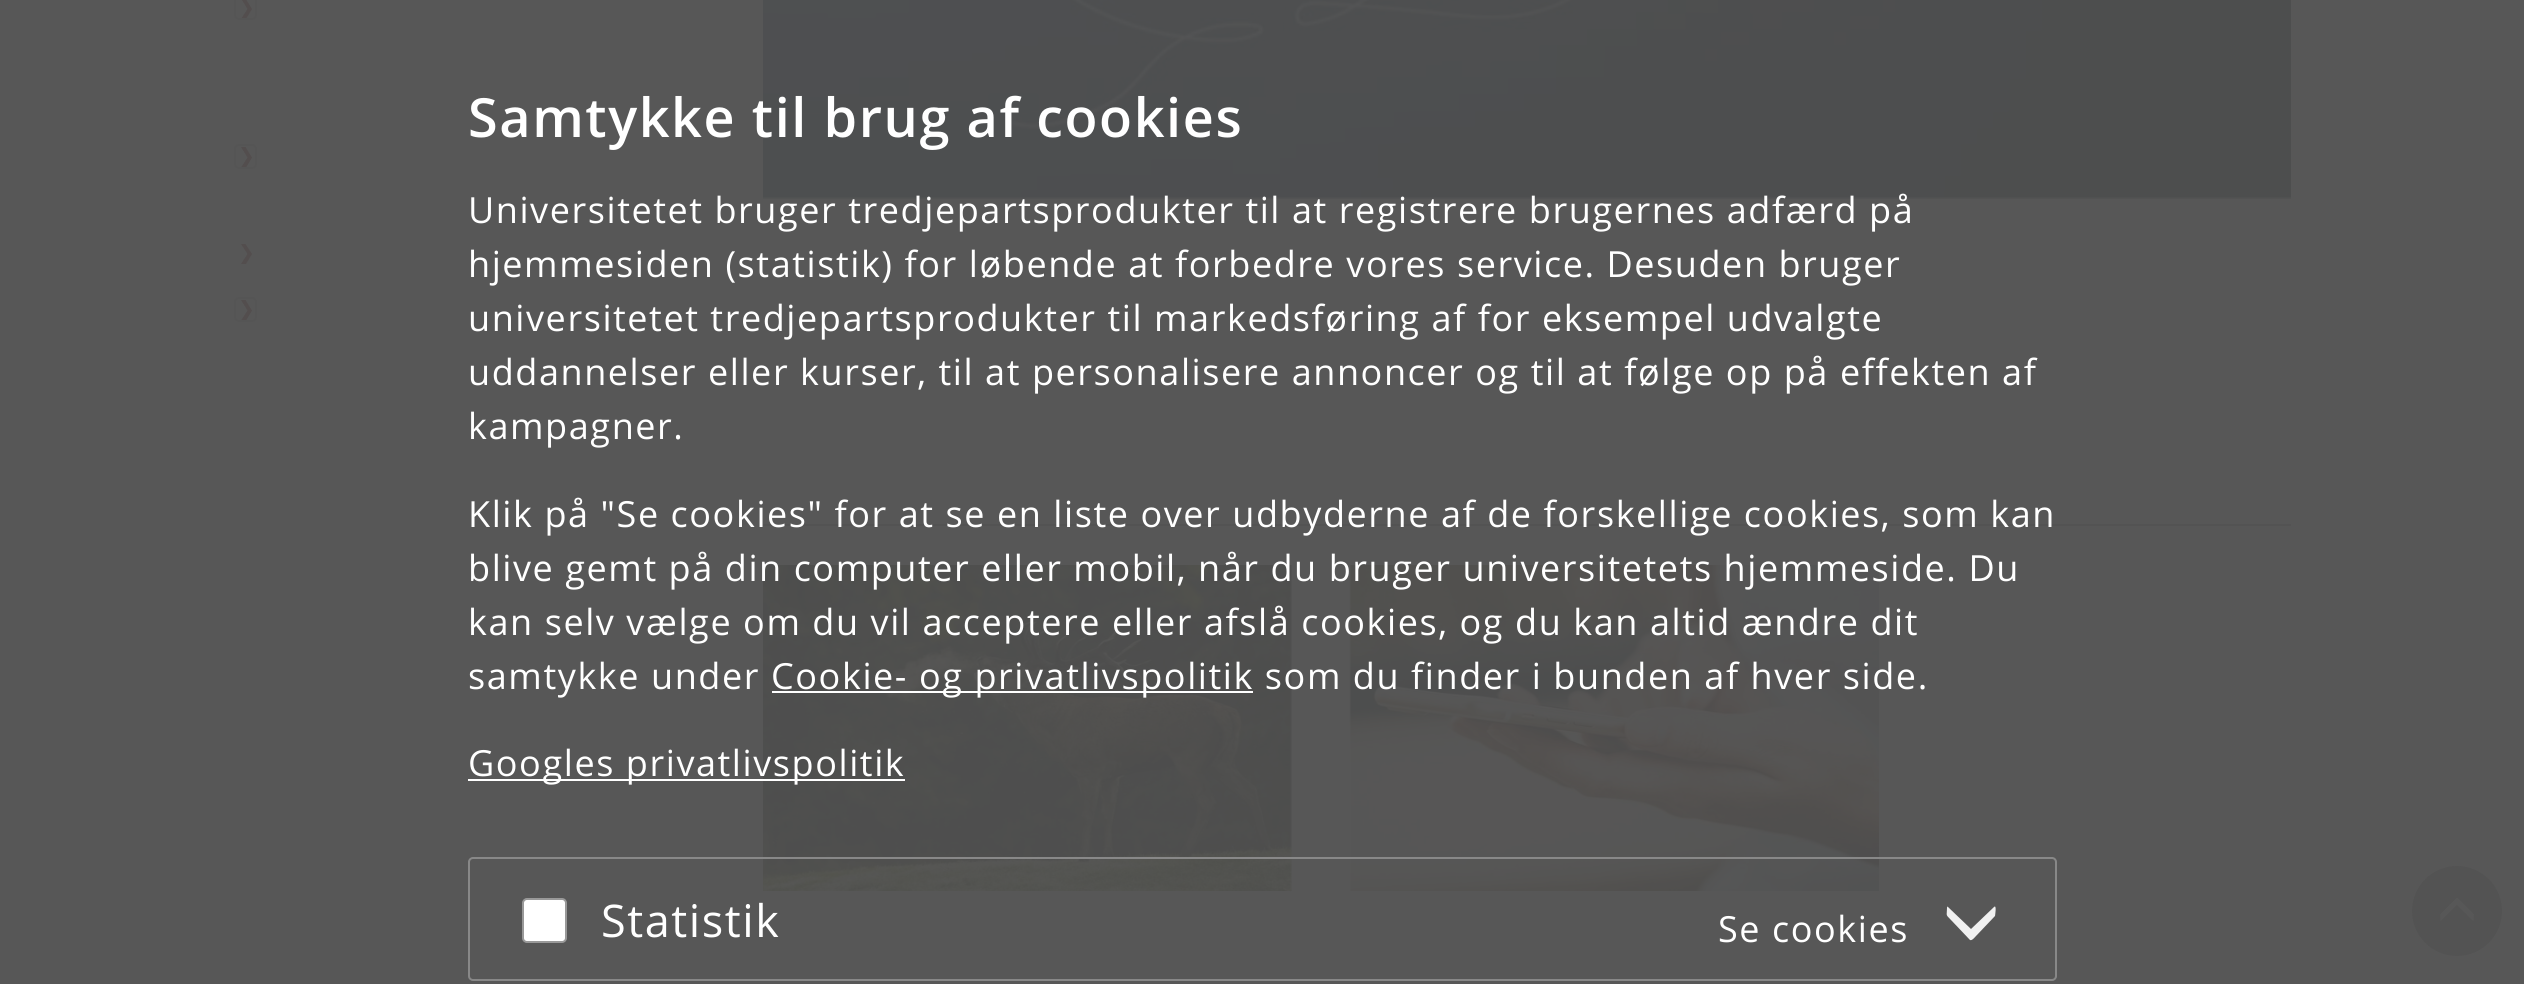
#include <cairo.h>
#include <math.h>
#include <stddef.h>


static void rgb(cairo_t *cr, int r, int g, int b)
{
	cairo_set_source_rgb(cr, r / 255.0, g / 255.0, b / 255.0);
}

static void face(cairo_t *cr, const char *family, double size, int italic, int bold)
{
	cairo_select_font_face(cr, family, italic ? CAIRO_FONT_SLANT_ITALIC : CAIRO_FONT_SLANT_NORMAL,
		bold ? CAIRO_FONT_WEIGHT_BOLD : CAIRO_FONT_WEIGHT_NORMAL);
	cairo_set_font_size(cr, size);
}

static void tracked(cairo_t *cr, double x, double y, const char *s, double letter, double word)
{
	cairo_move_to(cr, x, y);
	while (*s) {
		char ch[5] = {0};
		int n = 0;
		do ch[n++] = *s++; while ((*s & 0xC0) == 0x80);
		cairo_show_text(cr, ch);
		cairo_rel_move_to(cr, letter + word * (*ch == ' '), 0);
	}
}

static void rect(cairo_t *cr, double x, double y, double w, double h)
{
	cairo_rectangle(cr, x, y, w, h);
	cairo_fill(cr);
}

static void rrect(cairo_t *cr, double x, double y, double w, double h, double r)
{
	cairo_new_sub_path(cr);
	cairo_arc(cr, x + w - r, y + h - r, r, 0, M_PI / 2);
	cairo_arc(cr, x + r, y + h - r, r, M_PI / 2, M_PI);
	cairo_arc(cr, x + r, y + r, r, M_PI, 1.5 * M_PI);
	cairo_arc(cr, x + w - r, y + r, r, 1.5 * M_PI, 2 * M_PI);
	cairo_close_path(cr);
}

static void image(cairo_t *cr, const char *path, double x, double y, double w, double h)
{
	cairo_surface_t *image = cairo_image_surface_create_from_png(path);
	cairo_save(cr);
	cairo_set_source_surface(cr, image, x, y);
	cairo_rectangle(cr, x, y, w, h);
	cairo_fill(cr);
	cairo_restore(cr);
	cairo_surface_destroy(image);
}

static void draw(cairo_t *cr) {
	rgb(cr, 87, 87, 87);
	cairo_paint(cr);
	rgb(cr, 83, 78, 78);
	cairo_new_path(cr);
	cairo_move_to(cr, 241, 19);
	cairo_line_to(cr, 246, 19);
	cairo_line_to(cr, 252, 9);
	cairo_line_to(cr, 245.5, -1.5);
	cairo_line_to(cr, 241, -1.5);
	cairo_line_to(cr, 247.5, 9);
	cairo_close_path(cr);
	cairo_fill(cr);
	rrect(cr, 235, -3, 21, 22, 4);
	rgb(cr, 85, 85, 85);
	cairo_stroke(cr);
	rgb(cr, 83, 78, 78);
	cairo_new_path(cr);
	cairo_move_to(cr, 241, 167.5);
	cairo_line_to(cr, 246, 167.5);
	cairo_line_to(cr, 252, 157.5);
	cairo_line_to(cr, 245.5, 147);
	cairo_line_to(cr, 241, 147);
	cairo_line_to(cr, 247.5, 157.5);
	cairo_close_path(cr);
	cairo_fill(cr);
	rrect(cr, 235, 145, 21, 23, 4);
	rgb(cr, 85, 85, 85);
	cairo_stroke(cr);
	rgb(cr, 83, 78, 78);
	cairo_new_path(cr);
	cairo_move_to(cr, 241, 264);
	cairo_line_to(cr, 246, 264);
	cairo_line_to(cr, 252, 254);
	cairo_line_to(cr, 245.5, 244);
	cairo_line_to(cr, 241, 244);
	cairo_line_to(cr, 247.5, 254);
	cairo_close_path(cr);
	cairo_fill(cr);
	cairo_new_path(cr);
	cairo_move_to(cr, 241, 320.5);
	cairo_line_to(cr, 246, 320.5);
	cairo_line_to(cr, 252, 310.5);
	cairo_line_to(cr, 245.5, 300);
	cairo_line_to(cr, 241, 300);
	cairo_line_to(cr, 247.5, 310.5);
	cairo_close_path(cr);
	cairo_fill(cr);
	rrect(cr, 235, 298, 21, 23, 4);
	rgb(cr, 85, 85, 85);
	cairo_stroke(cr);
	image(cr, "image0.png", 763, 0, 1528, 199);
	rgb(cr, 83, 83, 83);
	rect(cr, 763, 524, 1528, 2);
	image(cr, "image1.png", 763, 565, 529, 327);
	image(cr, "image2.png", 1349, 565, 530, 327);
	face(cr, "Open Sans SemiBold", 54, 0, 0);
	rgb(cr, 255, 255, 255);
	tracked(cr, 468, 137, "Samtykke til brug af cookies", 1.57, 0);
	face(cr, "Open Sans", 36, 0, 0);
	tracked(cr, 468, 223, "Universitetet bruger tredjepartsprodukter til at registrere brugernes adfærd på", 1.57, 0);
	tracked(cr, 468, 277, "hjemmesiden (statistik) for løbende at forbedre vores service. Desuden bruger", 1.57, 0);
	tracked(cr, 468, 331, "universitetet tredjepartsprodukter til markedsføring af for eksempel udvalgte", 1.57, 0);
	tracked(cr, 468, 385, "uddannelser eller kurser, til at personalisere annoncer og til at følge op på effekten af", 1.57, 0);
	tracked(cr, 468, 439, "kampagner.", 1.57, 0);
	tracked(cr, 468, 527, "Klik på \"Se cookies\" for at se en liste over udbyderne af de forskellige cookies, som kan", 1.57, 0);
	tracked(cr, 468, 581, "blive gemt på din computer eller mobil, når du bruger universitetets hjemmeside. Du", 1.57, 0);
	tracked(cr, 468, 635, "kan selv vælge om du vil acceptere eller afslå cookies, og du kan altid ændre dit", 1.57, 0);
	tracked(cr, 468, 689, "samtykke under", 1.57, 0);
	rect(cr, 772, 691, 481, 2);
	tracked(cr, 771, 689, "Cookie- og privatlivspolitik som du finder i bunden af hver side.", 1.57, 0);
	rect(cr, 468, 779, 437, 2);
	tracked(cr, 468, 776, "Googles privatlivspolitik", 1.57, 0);
	rrect(cr, 469, 858, 1587, 122, 4);
	rgb(cr, 136, 136, 136);
	cairo_stroke(cr);
	rgb(cr, 255, 255, 255);
	rrect(cr, 523, 899, 43, 43, 4);
	cairo_fill_preserve(cr);
	rgb(cr, 153, 153, 153);
	cairo_stroke(cr);
	face(cr, "Open Sans", 45, 0, 0);
	rgb(cr, 255, 255, 255);
	tracked(cr, 601, 937, "Statistik", 1.57, 0);
	face(cr, "Open Sans", 36, 0, 0);
	tracked(cr, 1718, 942, "Se cookies", 1.57, 0);
	rgb(cr, 241, 241, 241);
	cairo_new_path(cr);
	cairo_move_to(cr, 1994, 907);
	cairo_curve_to(cr, 1997, 904, 1995, 916, 1995, 916);
	cairo_line_to(cr, 1976, 936);
	cairo_curve_to(cr, 1975, 937, 1972, 941, 1970, 940);
	cairo_line_to(cr, 1951, 920);
	cairo_curve_to(cr, 1945, 914, 1947, 916, 1947, 908);
	cairo_curve_to(cr, 1947, 907, 1947, 906, 1948, 907);
	cairo_line_to(cr, 1971, 929);
	cairo_close_path(cr);
	cairo_fill(cr);
	rgb(cr, 83, 83, 83);
	cairo_arc(cr, 2457, 911, 45, 0, 2 * M_PI);
	cairo_fill(cr);
	image(cr, "image3.png", 2440, 897, 34, 24);
}

int main(void) {
	cairo_surface_t *surface = cairo_image_surface_create(CAIRO_FORMAT_RGB24, 2524, 984);
	cairo_t *cr = cairo_create(surface);
	cairo_font_options_t *options = cairo_font_options_create();
	cairo_font_options_set_hint_metrics(options, CAIRO_HINT_METRICS_OFF);
	cairo_font_options_set_hint_style(options, CAIRO_HINT_STYLE_NONE);
	cairo_set_font_options(cr, options);
	cairo_set_miter_limit(cr, 4);
	draw(cr);
	cairo_surface_write_to_png(surface, "render.png");
	cairo_font_options_destroy(options);
	cairo_destroy(cr);
	cairo_surface_destroy(surface);
	return 0;
}
